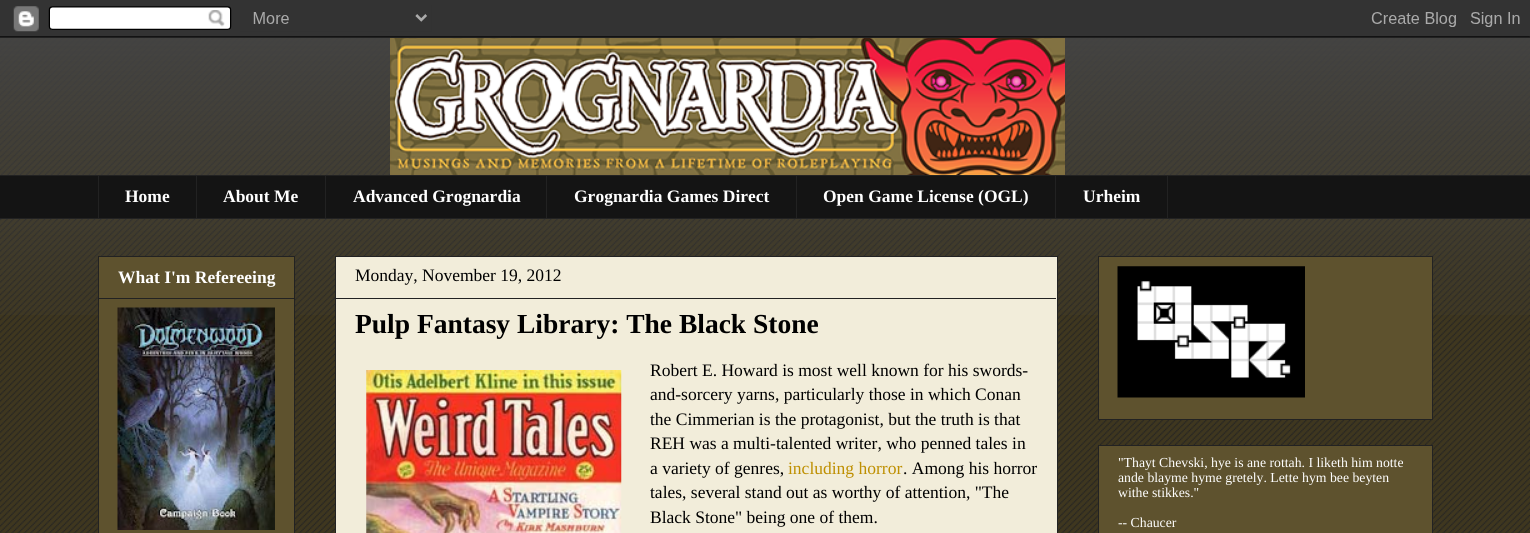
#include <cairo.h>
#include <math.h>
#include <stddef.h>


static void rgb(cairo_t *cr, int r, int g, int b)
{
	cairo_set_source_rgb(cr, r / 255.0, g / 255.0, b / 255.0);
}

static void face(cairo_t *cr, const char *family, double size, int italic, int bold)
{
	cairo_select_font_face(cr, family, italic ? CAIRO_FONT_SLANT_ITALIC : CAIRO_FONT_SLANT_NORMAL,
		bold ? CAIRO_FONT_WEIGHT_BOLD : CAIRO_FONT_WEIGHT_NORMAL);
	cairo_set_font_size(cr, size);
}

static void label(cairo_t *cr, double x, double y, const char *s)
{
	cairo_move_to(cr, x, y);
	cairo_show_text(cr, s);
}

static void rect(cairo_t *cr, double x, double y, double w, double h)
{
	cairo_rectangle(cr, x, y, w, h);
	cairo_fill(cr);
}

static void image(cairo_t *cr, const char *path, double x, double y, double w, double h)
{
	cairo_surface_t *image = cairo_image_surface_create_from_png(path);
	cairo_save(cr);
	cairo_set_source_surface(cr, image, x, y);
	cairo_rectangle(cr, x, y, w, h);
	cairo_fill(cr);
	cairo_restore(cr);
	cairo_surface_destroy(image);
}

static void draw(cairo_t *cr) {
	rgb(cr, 63, 55, 31);
	cairo_paint(cr);
	image(cr, "image0.png", 0, 36, 1530, 497);
	image(cr, "image2.png", 0, 36, 1530, 279);
	image(cr, "image1.png", 0, 0, 1530, 38);
	image(cr, "image3.png", 390, 38, 675, 137);
	rgb(cr, 20, 20, 20);
	rect(cr, 0, 176, 1530, 42);
	rgb(cr, 34, 34, 34);
	rect(cr, 0, 175, 1530, 1);
	rect(cr, 98, 175, 1, 44);
	face(cr, "Liberation Serif", 17.5, 0, 1);
	rgb(cr, 255, 255, 255);
	label(cr, 125, 202, "Home");
	rgb(cr, 34, 34, 34);
	rect(cr, 196, 175, 1, 44);
	rgb(cr, 255, 255, 255);
	label(cr, 223, 202, "About Me");
	rgb(cr, 34, 34, 34);
	rect(cr, 325, 175, 1, 44);
	rgb(cr, 255, 255, 255);
	label(cr, 353, 202, "Advanced Grognardia");
	rgb(cr, 34, 34, 34);
	rect(cr, 546, 175, 1, 44);
	rgb(cr, 255, 255, 255);
	label(cr, 574, 202, "Grognardia Games Direct");
	rgb(cr, 34, 34, 34);
	rect(cr, 796, 175, 1, 44);
	rgb(cr, 255, 255, 255);
	label(cr, 823, 202, "Open Game License (OGL)");
	cairo_rectangle(cr, 1055.5, 175.5, 112, 43);
	rgb(cr, 34, 34, 34);
	cairo_set_line_width(cr, 1);
	cairo_stroke(cr);
	rgb(cr, 255, 255, 255);
	label(cr, 1083, 202, "Urheim");
	rgb(cr, 34, 34, 34);
	rect(cr, 0, 218, 1530, 1);
	rgb(cr, 94, 82, 46);
	cairo_rectangle(cr, 98.5, 256.5, 196, 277);
	cairo_fill_preserve(cr);
	rgb(cr, 34, 34, 34);
	cairo_stroke(cr);
	rgb(cr, 255, 255, 255);
	label(cr, 118, 283, "What I'm Refereeing");
	rgb(cr, 34, 34, 34);
	rect(cr, 99, 298, 195, 1);
	image(cr, "image4.png", 117, 307, 158, 223);
	rgb(cr, 242, 237, 218);
	cairo_rectangle(cr, 335.5, 256.5, 722, 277);
	cairo_fill_preserve(cr);
	rgb(cr, 34, 34, 34);
	cairo_stroke(cr);
	face(cr, "Liberation Serif", 17.5, 0, 0);
	rgb(cr, 0, 0, 0);
	label(cr, 355, 281, "Monday, November 19, 2012");
	rgb(cr, 34, 34, 34);
	rect(cr, 336, 298, 720, 1);
	face(cr, "Liberation Serif", 27.5, 0, 1);
	rgb(cr, 0, 0, 0);
	label(cr, 355, 333, "Pulp Fantasy Library: The Black Stone");
	image(cr, "image5.png", 366, 370, 256, 163);
	face(cr, "Liberation Serif", 17.5, 0, 0);
	label(cr, 650, 376, "Robert E. Howard is most well known for his swords-");
	label(cr, 650, 400, "and-sorcery yarns, particularly those in which Conan");
	label(cr, 650, 425, "the Cimmerian is the protagonist, but the truth is that");
	label(cr, 650, 449, "REH was a multi-talented writer, who penned tales in");
	label(cr, 650, 474, "a variety of genres,");
	rgb(cr, 190, 143, 0);
	label(cr, 788, 474, "including horror");
	rgb(cr, 0, 0, 0);
	label(cr, 903, 474, ". Among his horror");
	label(cr, 650, 498, "tales, several stand out as worthy of attention, \"The");
	label(cr, 650, 523, "Black Stone\" being one of them.");
	rgb(cr, 94, 82, 46);
	cairo_rectangle(cr, 1098.5, 256.5, 334, 163);
	cairo_fill_preserve(cr);
	rgb(cr, 34, 34, 34);
	cairo_stroke(cr);
	image(cr, "image6.png", 1117, 266, 188, 132);
	rgb(cr, 94, 82, 46);
	cairo_rectangle(cr, 1098.5, 445.5, 334, 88);
	cairo_fill_preserve(cr);
	rgb(cr, 34, 34, 34);
	cairo_stroke(cr);
	face(cr, "Liberation Serif", 13.75, 0, 0);
	rgb(cr, 255, 255, 255);
	label(cr, 1118, 467, "\"Thayt Chevski, hye is ane rottah. I liketh him notte");
	label(cr, 1118, 482, "ande blayme hyme gretely. Lette hym bee beyten");
	label(cr, 1118, 497, "withe stikkes.\"");
	label(cr, 1118, 527, "-- Chaucer");
}

int main(void) {
	cairo_surface_t *surface = cairo_image_surface_create(CAIRO_FORMAT_RGB24, 1530, 533);
	cairo_t *cr = cairo_create(surface);
	cairo_font_options_t *options = cairo_font_options_create();
	cairo_font_options_set_hint_metrics(options, CAIRO_HINT_METRICS_OFF);
	cairo_font_options_set_hint_style(options, CAIRO_HINT_STYLE_NONE);
	cairo_set_font_options(cr, options);
	cairo_set_miter_limit(cr, 4);
	draw(cr);
	cairo_surface_write_to_png(surface, "render.png");
	cairo_font_options_destroy(options);
	cairo_destroy(cr);
	cairo_surface_destroy(surface);
	return 0;
}
